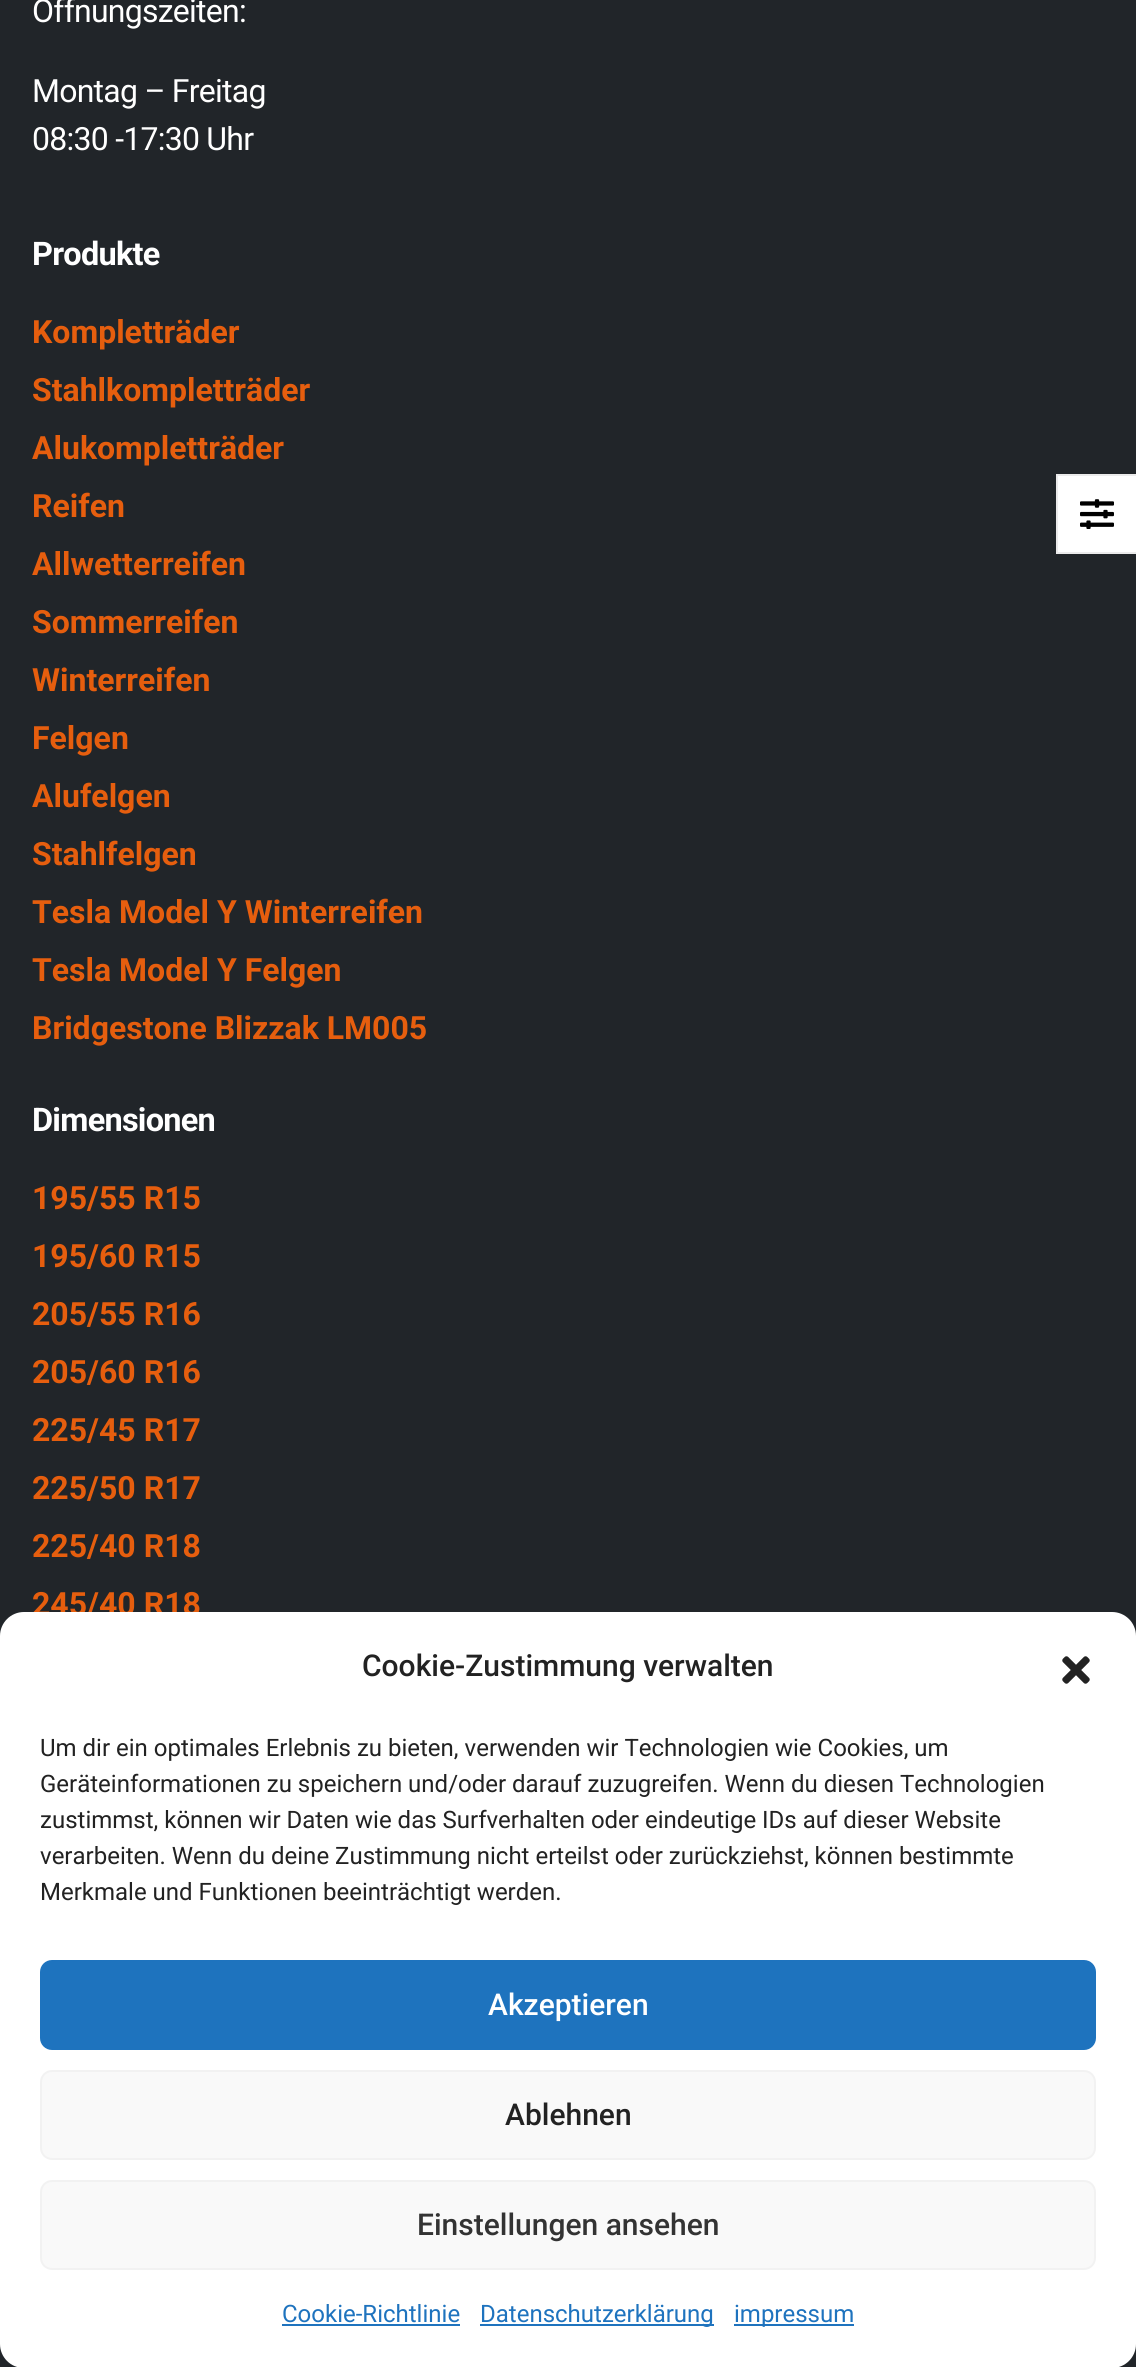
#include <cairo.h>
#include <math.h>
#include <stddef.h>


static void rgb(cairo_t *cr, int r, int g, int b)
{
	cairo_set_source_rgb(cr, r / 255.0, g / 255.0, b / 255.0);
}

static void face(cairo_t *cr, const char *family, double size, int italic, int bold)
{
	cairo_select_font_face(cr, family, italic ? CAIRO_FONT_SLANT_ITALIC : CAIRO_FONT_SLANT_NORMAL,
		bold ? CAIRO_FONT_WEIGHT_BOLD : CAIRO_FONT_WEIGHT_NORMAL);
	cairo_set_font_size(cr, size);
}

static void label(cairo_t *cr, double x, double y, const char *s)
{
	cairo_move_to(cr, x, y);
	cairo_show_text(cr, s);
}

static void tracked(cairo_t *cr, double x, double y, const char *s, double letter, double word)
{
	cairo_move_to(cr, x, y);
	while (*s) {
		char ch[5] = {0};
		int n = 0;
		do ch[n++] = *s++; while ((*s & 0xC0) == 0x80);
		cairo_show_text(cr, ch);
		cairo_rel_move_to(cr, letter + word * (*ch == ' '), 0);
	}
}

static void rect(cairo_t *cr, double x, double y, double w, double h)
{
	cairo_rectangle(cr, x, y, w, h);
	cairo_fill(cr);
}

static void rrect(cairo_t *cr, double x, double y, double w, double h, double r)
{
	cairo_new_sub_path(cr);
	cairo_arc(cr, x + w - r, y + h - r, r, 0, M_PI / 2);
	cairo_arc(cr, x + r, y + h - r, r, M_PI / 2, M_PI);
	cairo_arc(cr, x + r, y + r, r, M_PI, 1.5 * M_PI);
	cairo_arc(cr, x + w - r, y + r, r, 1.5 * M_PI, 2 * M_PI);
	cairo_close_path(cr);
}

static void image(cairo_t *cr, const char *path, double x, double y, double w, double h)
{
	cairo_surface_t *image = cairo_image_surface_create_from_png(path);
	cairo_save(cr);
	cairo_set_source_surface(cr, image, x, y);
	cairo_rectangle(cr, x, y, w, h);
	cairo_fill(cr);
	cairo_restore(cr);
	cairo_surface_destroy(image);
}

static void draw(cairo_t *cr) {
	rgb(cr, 33, 37, 41);
	cairo_paint(cr);
	face(cr, "Roboto", 32, 0, 0);
	rgb(cr, 255, 255, 255);
	tracked(cr, 32, 22, "Öffnungszeiten:", -0.75, 0);
	tracked(cr, 32, 102, "Montag – Freitag", -0.75, 0);
	tracked(cr, 32, 150, "08:30 -17:30 Uhr", -0.75, 0);
	face(cr, "Roboto", 32.5, 0, 1);
	tracked(cr, 32, 265, "Produkte", -0.75, 0);
	face(cr, "Roboto", 32, 0, 1);
	rgb(cr, 230, 94, 14);
	label(cr, 32, 343, "Kompletträder");
	label(cr, 32, 401, "Stahlkompletträder");
	label(cr, 32, 459, "Alukompletträder");
	label(cr, 32, 517, "Reifen");
	label(cr, 32, 575, "Allwetterreifen");
	label(cr, 32, 633, "Sommerreifen");
	label(cr, 32, 691, "Winterreifen");
	label(cr, 32, 749, "Felgen");
	label(cr, 32, 807, "Alufelgen");
	label(cr, 32, 865, "Stahlfelgen");
	label(cr, 32, 923, "Tesla Model Y Winterreifen");
	label(cr, 32, 981, "Tesla Model Y Felgen");
	label(cr, 32, 1039, "Bridgestone Blizzak LM005");
	face(cr, "Roboto", 32.5, 0, 1);
	rgb(cr, 255, 255, 255);
	tracked(cr, 32, 1131, "Dimensionen", -0.75, 0);
	face(cr, "Roboto", 32, 0, 1);
	rgb(cr, 230, 94, 14);
	label(cr, 32, 1209, "195/55 R15");
	label(cr, 32, 1267, "195/60 R15");
	label(cr, 32, 1325, "205/55 R16");
	label(cr, 32, 1383, "205/60 R16");
	label(cr, 32, 1441, "225/45 R17");
	label(cr, 32, 1499, "225/50 R17");
	label(cr, 32, 1557, "225/40 R18");
	label(cr, 32, 1615, "245/40 R18");
	rgb(cr, 255, 255, 255);
	rect(cr, 1056, 474, 80, 80);
	rgb(cr, 235, 235, 235);
	cairo_new_path(cr);
	cairo_move_to(cr, 1056, 474);
	cairo_line_to(cr, 1136, 474);
	cairo_line_to(cr, 1136, 476);
	cairo_line_to(cr, 1058, 476);
	cairo_close_path(cr);
	cairo_fill(cr);
	cairo_new_path(cr);
	cairo_move_to(cr, 1136, 554);
	cairo_line_to(cr, 1056, 554);
	cairo_line_to(cr, 1058, 552);
	cairo_line_to(cr, 1136, 552);
	cairo_close_path(cr);
	cairo_fill(cr);
	cairo_set_source_rgba(cr, 0, 0, 0, 0.08);
	cairo_new_path(cr);
	cairo_move_to(cr, 1056, 554);
	cairo_line_to(cr, 1056, 474);
	cairo_line_to(cr, 1058, 476);
	cairo_line_to(cr, 1058, 552);
	cairo_close_path(cr);
	cairo_fill(cr);
	image(cr, "image0.png", 1080, 499, 34, 30);
	rgb(cr, 255, 255, 255);
	rrect(cr, 0, 1612, 1136, 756, 24);
	cairo_fill(cr);
	face(cr, "Roboto Medium", 30, 0, 0);
	rgb(cr, 34, 34, 34);
	label(cr, 362, 1676, "Cookie-Zustimmung verwalten");
	image(cr, "image1.png", 1062, 1656, 28, 28);
	face(cr, "Roboto", 24, 0, 0);
	label(cr, 40, 1756, "Um dir ein optimales Erlebnis zu bieten, verwenden wir Technologien wie Cookies, um");
	label(cr, 40, 1792, "Geräteinformationen zu speichern und/oder darauf zuzugreifen. Wenn du diesen Technologien");
	label(cr, 40, 1828, "zustimmst, können wir Daten wie das Surfverhalten oder eindeutige IDs auf dieser Website");
	label(cr, 40, 1864, "verarbeiten. Wenn du deine Zustimmung nicht erteilst oder zurückziehst, können bestimmte");
	label(cr, 40, 1900, "Merkmale und Funktionen beeinträchtigt werden.");
	rgb(cr, 30, 115, 190);
	rrect(cr, 41, 1961, 1054, 88, 11);
	cairo_fill_preserve(cr);
	cairo_stroke(cr);
	face(cr, "Roboto Medium", 30, 0, 0);
	rgb(cr, 255, 255, 255);
	label(cr, 488, 2015, "Akzeptieren");
	rgb(cr, 249, 249, 249);
	rrect(cr, 41, 2071, 1054, 88, 11);
	cairo_fill_preserve(cr);
	rgb(cr, 242, 242, 242);
	cairo_stroke(cr);
	rgb(cr, 34, 34, 34);
	label(cr, 505, 2125, "Ablehnen");
	rgb(cr, 249, 249, 249);
	rrect(cr, 41, 2181, 1054, 88, 11);
	cairo_fill_preserve(cr);
	rgb(cr, 242, 242, 242);
	cairo_stroke(cr);
	rgb(cr, 51, 51, 51);
	label(cr, 417, 2235, "Einstellungen ansehen");
	face(cr, "Roboto", 24, 0, 0);
	rgb(cr, 30, 115, 190);
	label(cr, 282, 2322, "Cookie-Richtlinie");
	rect(cr, 282, 2324, 178, 2);
	rect(cr, 480, 2324, 234, 2);
	label(cr, 480, 2322, "Datenschutzerklärung");
	rect(cr, 734, 2324, 120, 2);
	label(cr, 734, 2322, "impressum");
}

int main(void) {
	cairo_surface_t *surface = cairo_image_surface_create(CAIRO_FORMAT_RGB24, 1136, 2367);
	cairo_t *cr = cairo_create(surface);
	cairo_font_options_t *options = cairo_font_options_create();
	cairo_font_options_set_hint_metrics(options, CAIRO_HINT_METRICS_OFF);
	cairo_font_options_set_hint_style(options, CAIRO_HINT_STYLE_NONE);
	cairo_set_font_options(cr, options);
	cairo_set_miter_limit(cr, 4);
	draw(cr);
	cairo_surface_write_to_png(surface, "render.png");
	cairo_font_options_destroy(options);
	cairo_destroy(cr);
	cairo_surface_destroy(surface);
	return 0;
}
